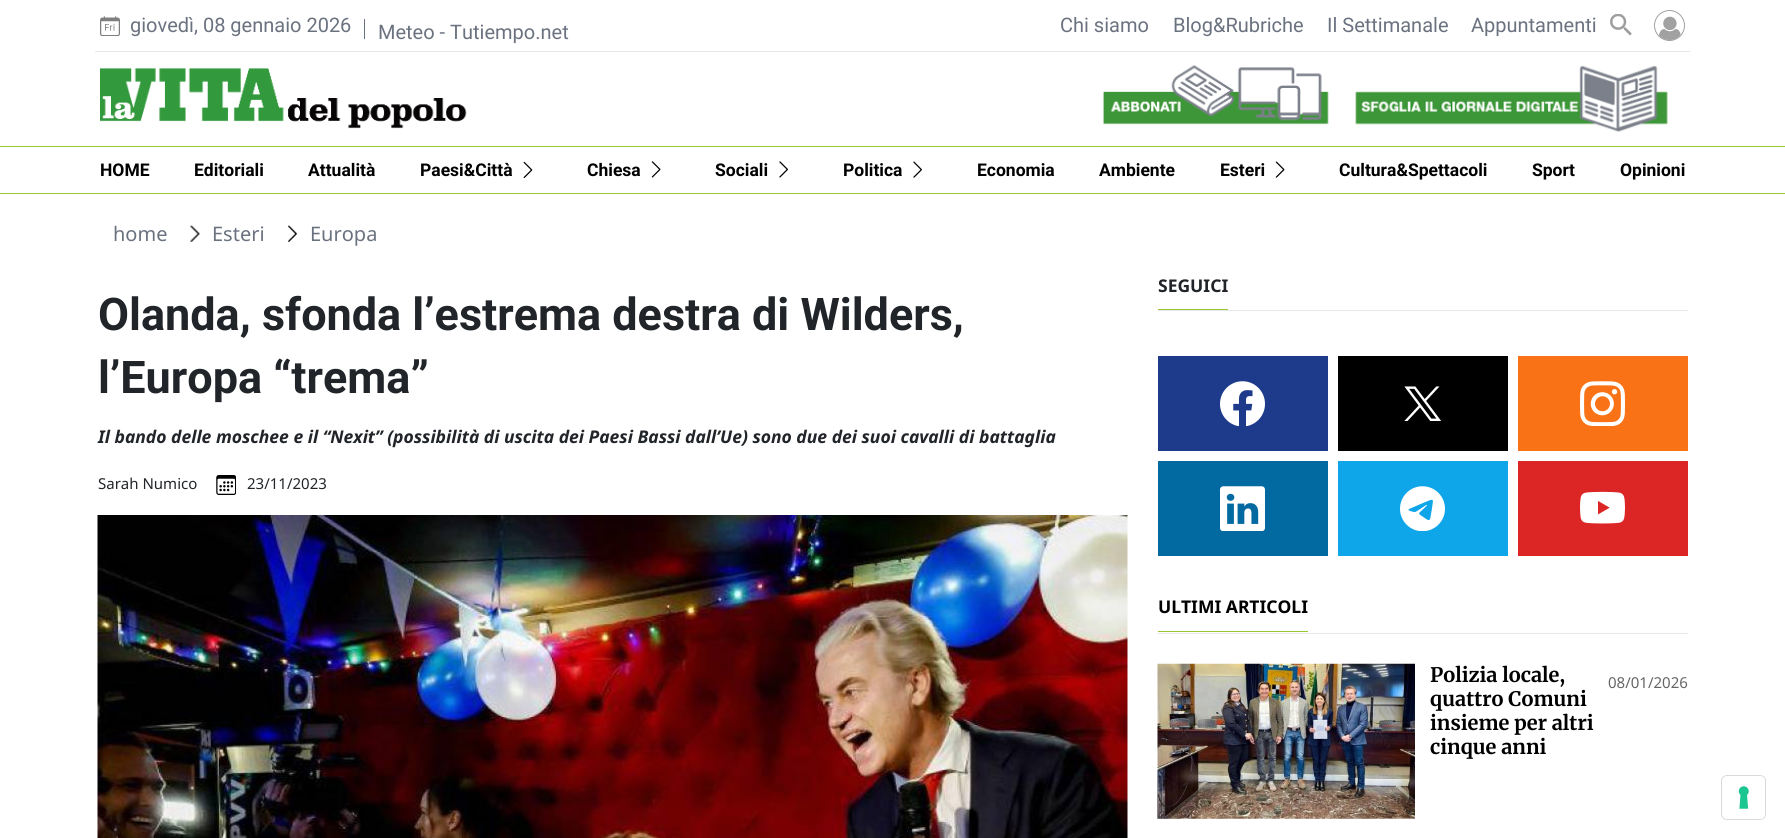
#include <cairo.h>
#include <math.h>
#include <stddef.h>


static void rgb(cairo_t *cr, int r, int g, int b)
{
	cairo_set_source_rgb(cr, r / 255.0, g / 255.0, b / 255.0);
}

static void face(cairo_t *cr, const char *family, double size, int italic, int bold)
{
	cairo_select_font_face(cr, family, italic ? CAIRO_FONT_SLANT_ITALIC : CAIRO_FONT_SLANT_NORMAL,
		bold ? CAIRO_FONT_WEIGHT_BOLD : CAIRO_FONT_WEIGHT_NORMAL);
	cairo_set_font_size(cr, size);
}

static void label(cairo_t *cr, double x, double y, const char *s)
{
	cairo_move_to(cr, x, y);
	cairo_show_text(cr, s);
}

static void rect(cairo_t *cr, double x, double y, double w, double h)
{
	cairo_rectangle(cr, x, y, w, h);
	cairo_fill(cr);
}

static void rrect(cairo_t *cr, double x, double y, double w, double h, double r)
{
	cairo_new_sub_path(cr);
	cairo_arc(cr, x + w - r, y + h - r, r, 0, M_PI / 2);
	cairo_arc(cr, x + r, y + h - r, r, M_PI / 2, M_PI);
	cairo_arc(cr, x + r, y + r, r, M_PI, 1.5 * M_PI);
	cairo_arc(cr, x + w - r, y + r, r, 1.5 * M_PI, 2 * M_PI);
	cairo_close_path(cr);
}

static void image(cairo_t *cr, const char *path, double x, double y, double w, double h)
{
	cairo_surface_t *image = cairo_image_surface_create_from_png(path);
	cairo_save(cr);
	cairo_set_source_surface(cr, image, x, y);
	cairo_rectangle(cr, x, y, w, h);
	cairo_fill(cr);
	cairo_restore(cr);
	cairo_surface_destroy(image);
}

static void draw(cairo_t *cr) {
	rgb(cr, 255, 255, 255);
	cairo_paint(cr);
	image(cr, "image0.png", 100, 16, 20, 20);
	face(cr, "Roboto", 20, 0, 0);
	rgb(cr, 107, 114, 127);
	label(cr, 130, 32, "giovedì, 08 gennaio 2026");
	rect(cr, 364, 19, 1, 20);
	label(cr, 378, 39, "Meteo - Tutiempo.net");
	label(cr, 1060, 32, "Chi siamo");
	label(cr, 1173, 32, "Blog&Rubriche");
	label(cr, 1327, 32, "Il Settimanale");
	label(cr, 1471, 32, "Appuntamenti");
	image(cr, "image1.png", 1610, 14, 22, 22);
	cairo_arc(cr, 1669.5, 25.5, 15, 0, 2 * M_PI);
	rgb(cr, 162, 162, 162);
	cairo_set_line_width(cr, 1);
	cairo_stroke(cr);
	image(cr, "image2.png", 1659, 16, 22, 24);
	rgb(cr, 229, 231, 235);
	rect(cr, 95, 51, 1595, 1);
	image(cr, "image3.png", 100, 68, 367, 61);
	image(cr, "image4.png", 1103, 65, 226, 60);
	image(cr, "image5.png", 1355, 65, 313, 67);
	rgb(cr, 152, 199, 51);
	rect(cr, 0, 146, 1785, 1);
	rect(cr, 0, 193, 1785, 1);
	face(cr, "Roboto", 17.5, 0, 1);
	rgb(cr, 0, 0, 0);
	label(cr, 100, 176, "HOME");
	label(cr, 194, 176, "Editoriali");
	label(cr, 308, 176, "Attualità");
	label(cr, 420, 176, "Paesi&Città");
	image(cr, "image6.png", 523, 161, 10, 17);
	label(cr, 587, 176, "Chiesa");
	image(cr, "image7.png", 651, 161, 10, 17);
	label(cr, 715, 176, "Sociali");
	image(cr, "image8.png", 779, 161, 9, 17);
	label(cr, 843, 176, "Politica");
	image(cr, "image9.png", 913, 161, 9, 17);
	label(cr, 977, 176, "Economia");
	label(cr, 1099, 176, "Ambiente");
	label(cr, 1220, 176, "Esteri");
	image(cr, "image10.png", 1275, 161, 10, 17);
	label(cr, 1339, 176, "Cultura&Spettacoli");
	label(cr, 1532, 176, "Sport");
	label(cr, 1620, 176, "Opinioni");
	face(cr, "Noto Sans", 20, 0, 0);
	rgb(cr, 107, 114, 127);
	label(cr, 113, 241, "home");
	image(cr, "image11.png", 190, 225, 10, 17);
	label(cr, 212, 241, "Esteri");
	image(cr, "image12.png", 288, 225, 9, 18);
	label(cr, 310, 241, "Europa");
	face(cr, "Roboto", 45, 0, 1);
	rgb(cr, 33, 37, 41);
	label(cr, 98, 330, "Olanda, sfonda l’estrema destra di Wilders,");
	label(cr, 98, 393, "l’Europa “trema”");
	face(cr, "Noto Sans", 17.5, 1, 1);
	label(cr, 98, 443, "Il bando delle moschee e il “Nexit” (possibilità di uscita dei Paesi Bassi dall’Ue) sono due dei suoi cavalli di battaglia");
	face(cr, "Noto Sans", 15, 0, 0);
	label(cr, 98, 489, "Sarah Numico");
	image(cr, "image13.png", 216, 475, 20, 20);
	label(cr, 247, 489, "23/11/2023");
	image(cr, "image14.png", 97, 515, 1031, 323);
	rgb(cr, 229, 231, 235);
	rect(cr, 1158, 310, 530, 1);
	rgb(cr, 152, 199, 51);
	rect(cr, 1158, 309, 70, 1);
	face(cr, "Noto Sans", 17.5, 0, 1);
	rgb(cr, 33, 37, 41);
	label(cr, 1158, 292, "SEGUICI");
	rgb(cr, 30, 58, 138);
	rect(cr, 1158, 356, 170, 95);
	image(cr, "image15.png", 1220, 381, 45, 45);
	rgb(cr, 0, 0, 0);
	rect(cr, 1338, 356, 170, 95);
	image(cr, "image16.png", 1404, 386, 38, 35);
	rgb(cr, 249, 115, 22);
	rect(cr, 1518, 356, 170, 95);
	image(cr, "image17.png", 1580, 381, 45, 45);
	rgb(cr, 3, 105, 161);
	rect(cr, 1158, 461, 170, 95);
	image(cr, "image18.png", 1220, 486, 45, 45);
	rgb(cr, 14, 165, 233);
	rect(cr, 1338, 461, 170, 95);
	image(cr, "image19.png", 1400, 486, 45, 45);
	rgb(cr, 220, 38, 38);
	rect(cr, 1518, 461, 170, 95);
	image(cr, "image20.png", 1580, 491, 45, 33);
	rgb(cr, 229, 231, 235);
	rect(cr, 1158, 633, 530, 1);
	rgb(cr, 152, 199, 51);
	rect(cr, 1158, 631, 150, 1);
	rgb(cr, 0, 0, 0);
	label(cr, 1158, 613, "ULTIMI ARTICOLI");
	image(cr, "image21.png", 1157, 663, 258, 156);
	face(cr, "Merriweather", 20, 0, 1);
	label(cr, 1430, 682, "Polizia locale,");
	label(cr, 1430, 706, "quattro Comuni");
	label(cr, 1430, 730, "insieme per altri");
	label(cr, 1430, 754, "cinque anni");
	face(cr, "Noto Sans", 15, 0, 0);
	rgb(cr, 102, 102, 102);
	label(cr, 1608, 688, "08/01/2026");
	rrect(cr, 1721.5, 775.5, 44, 44, 5.5);
	rgb(cr, 217, 217, 217);
	cairo_stroke(cr);
	rgb(cr, 255, 255, 255);
	rrect(cr, 1723, 776, 42, 43, 5);
	cairo_fill(cr);
	image(cr, "image22.png", 1738, 786, 11, 23);
}

int main(void) {
	cairo_surface_t *surface = cairo_image_surface_create(CAIRO_FORMAT_RGB24, 1785, 838);
	cairo_t *cr = cairo_create(surface);
	cairo_font_options_t *options = cairo_font_options_create();
	cairo_font_options_set_hint_metrics(options, CAIRO_HINT_METRICS_OFF);
	cairo_font_options_set_hint_style(options, CAIRO_HINT_STYLE_NONE);
	cairo_set_font_options(cr, options);
	cairo_set_miter_limit(cr, 4);
	draw(cr);
	cairo_surface_write_to_png(surface, "render.png");
	cairo_font_options_destroy(options);
	cairo_destroy(cr);
	cairo_surface_destroy(surface);
	return 0;
}
